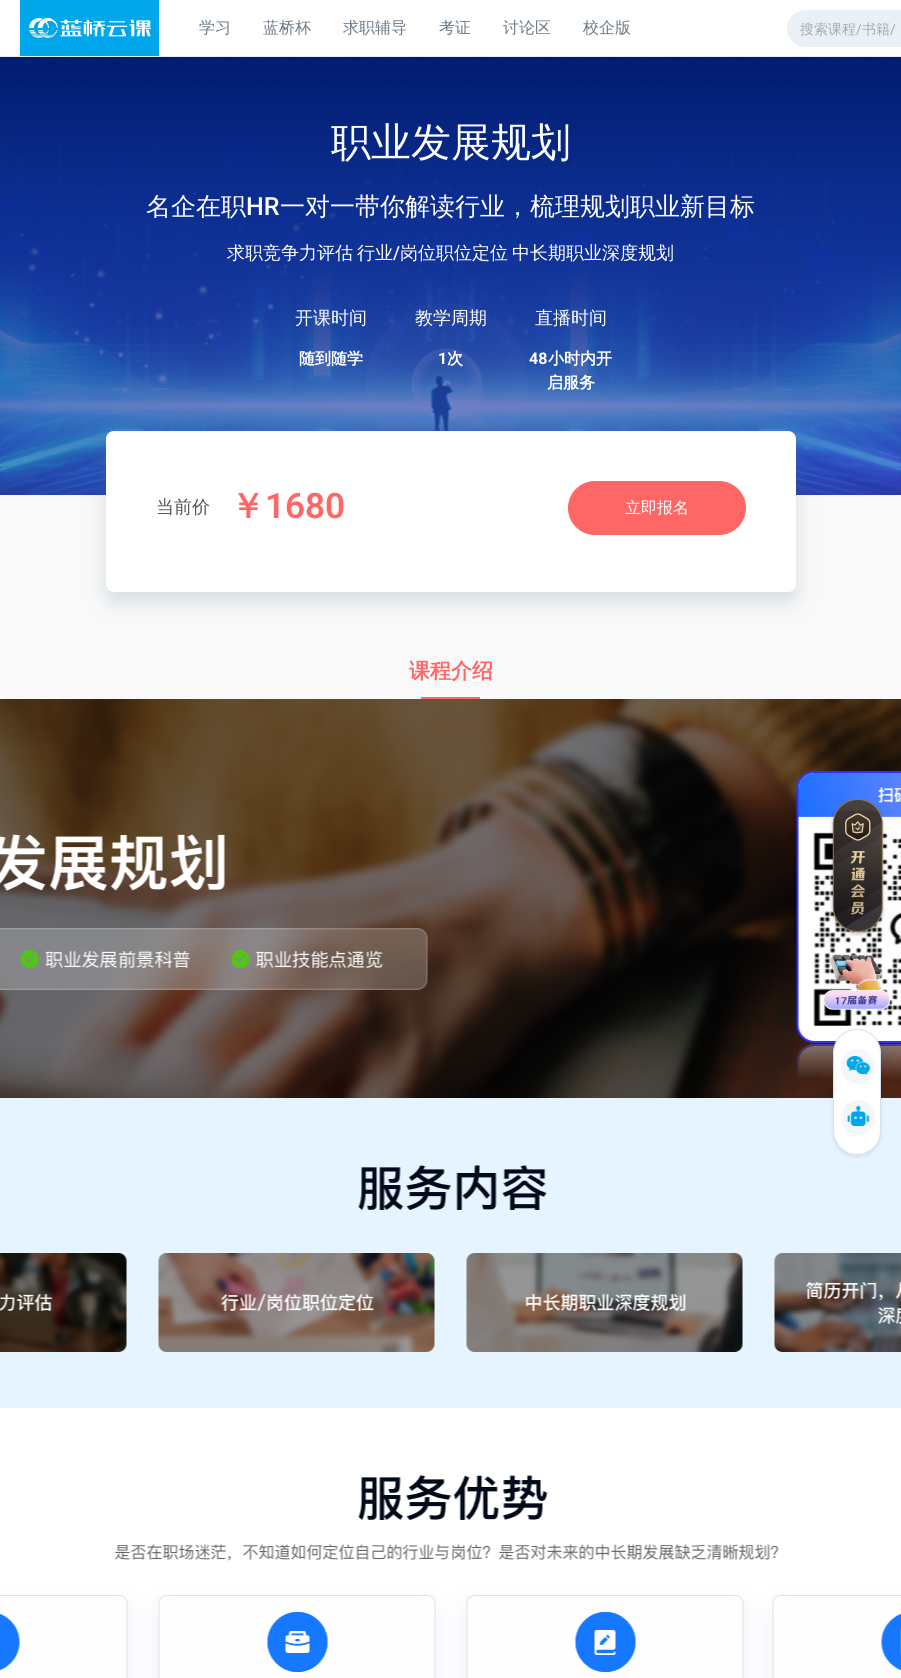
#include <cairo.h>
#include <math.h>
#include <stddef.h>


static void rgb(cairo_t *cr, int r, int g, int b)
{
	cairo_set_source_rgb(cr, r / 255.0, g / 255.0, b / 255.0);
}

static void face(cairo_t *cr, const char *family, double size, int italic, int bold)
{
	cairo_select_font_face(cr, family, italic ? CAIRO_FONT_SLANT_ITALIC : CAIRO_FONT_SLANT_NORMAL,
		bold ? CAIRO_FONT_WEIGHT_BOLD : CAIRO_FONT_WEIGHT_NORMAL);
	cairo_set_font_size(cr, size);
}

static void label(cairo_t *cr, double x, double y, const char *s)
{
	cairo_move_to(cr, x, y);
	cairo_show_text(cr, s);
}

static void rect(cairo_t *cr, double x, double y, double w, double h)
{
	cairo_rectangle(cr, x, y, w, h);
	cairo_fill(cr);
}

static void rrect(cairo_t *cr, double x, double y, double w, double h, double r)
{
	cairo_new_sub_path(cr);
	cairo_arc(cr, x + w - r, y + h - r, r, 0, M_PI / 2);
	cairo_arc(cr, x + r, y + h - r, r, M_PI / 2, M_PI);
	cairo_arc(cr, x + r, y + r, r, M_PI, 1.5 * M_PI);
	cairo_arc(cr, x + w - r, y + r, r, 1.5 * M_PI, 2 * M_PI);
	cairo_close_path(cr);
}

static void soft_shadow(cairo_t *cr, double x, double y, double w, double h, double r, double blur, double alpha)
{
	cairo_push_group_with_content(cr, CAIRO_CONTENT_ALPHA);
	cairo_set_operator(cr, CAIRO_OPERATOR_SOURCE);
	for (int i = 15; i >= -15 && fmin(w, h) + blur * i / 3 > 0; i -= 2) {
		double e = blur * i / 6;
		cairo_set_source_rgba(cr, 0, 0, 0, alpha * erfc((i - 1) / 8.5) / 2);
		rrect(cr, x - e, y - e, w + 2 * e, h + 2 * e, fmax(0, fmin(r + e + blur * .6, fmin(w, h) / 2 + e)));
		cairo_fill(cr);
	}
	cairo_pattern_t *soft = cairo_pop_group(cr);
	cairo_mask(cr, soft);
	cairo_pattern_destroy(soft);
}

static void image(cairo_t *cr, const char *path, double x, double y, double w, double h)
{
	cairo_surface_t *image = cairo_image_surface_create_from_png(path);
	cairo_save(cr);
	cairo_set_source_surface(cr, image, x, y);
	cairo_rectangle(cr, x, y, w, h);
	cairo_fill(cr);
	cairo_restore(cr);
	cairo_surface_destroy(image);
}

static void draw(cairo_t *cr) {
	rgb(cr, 249, 249, 249);
	cairo_paint(cr);
	rgb(cr, 230, 235, 238);
	rect(cr, 0, 56, 901, 1);
	rgb(cr, 255, 255, 255);
	rect(cr, 0, 0, 901, 56);
	rgb(cr, 0, 168, 235);
	rect(cr, 20, 0, 139, 56);
	image(cr, "image0.png", 29, 18, 122, 20);
	face(cr, "WenQuanYi Zen Hei Medium", 16, 0, 0);
	rgb(cr, 107, 121, 134);
	label(cr, 199, 33, "学习");
	label(cr, 263, 33, "蓝桥杯");
	label(cr, 343, 33, "求职辅导");
	label(cr, 439, 33, "考证");
	label(cr, 503, 33, "讨论区");
	label(cr, 583, 33, "校企版");
	rgb(cr, 234, 240, 245);
	rrect(cr, 787, 10, 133, 37, 18.5);
	cairo_fill(cr);
	face(cr, "WenQuanYi Zen Hei Medium", 14, 0, 0);
	rgb(cr, 160, 171, 181);
	label(cr, 800, 34, "搜索课程");
	face(cr, "Roboto", 14, 0, 0);
	label(cr, 856, 34, "/");
	face(cr, "WenQuanYi Zen Hei Medium", 14, 0, 0);
	label(cr, 862, 34, "书籍");
	face(cr, "Roboto", 14, 0, 0);
	label(cr, 890, 34, "/");
	image(cr, "image1.png", 0, 57, 901, 438);
	face(cr, "WenQuanYi Zen Hei Medium", 40, 0, 0);
	rgb(cr, 255, 255, 255);
	label(cr, 331, 156, "职业发展规划");
	face(cr, "WenQuanYi Zen Hei Medium", 25, 0, 0);
	label(cr, 146, 215, "名企在职");
	face(cr, "Roboto Medium", 25, 0, 0);
	label(cr, 246, 215, "HR");
	face(cr, "WenQuanYi Zen Hei Medium", 25, 0, 0);
	label(cr, 280, 215, "一对一带你解读行业，梳理规划职业新目标");
	face(cr, "WenQuanYi Zen Hei Medium", 18, 0, 0);
	label(cr, 227, 259, "求职竞争力评估");
	label(cr, 357, 259, "行业");
	face(cr, "Roboto Medium", 18, 0, 0);
	label(cr, 393, 259, "/");
	face(cr, "WenQuanYi Zen Hei Medium", 18, 0, 0);
	label(cr, 400, 259, "岗位职位定位");
	label(cr, 512, 259, "中长期职业深度规划");
	label(cr, 295, 324, "开课时间");
	face(cr, "WenQuanYi Zen Hei", 16, 0, 1);
	label(cr, 299, 364, "随到随学");
	face(cr, "WenQuanYi Zen Hei Medium", 18, 0, 0);
	label(cr, 415, 324, "教学周期");
	face(cr, "Roboto", 16, 0, 1);
	label(cr, 438, 364, "1");
	face(cr, "WenQuanYi Zen Hei", 16, 0, 1);
	label(cr, 447, 364, "次");
	face(cr, "WenQuanYi Zen Hei Medium", 18, 0, 0);
	label(cr, 535, 324, "直播时间");
	face(cr, "Roboto", 16, 0, 1);
	label(cr, 529, 364, "48");
	face(cr, "WenQuanYi Zen Hei", 16, 0, 1);
	label(cr, 548, 364, "小时内开");
	label(cr, 547, 388, "启服务");
	rgb(cr, 64, 111, 131);
	soft_shadow(cr, 106, 441, 690, 161, 8, 10, 0.2);
	rgb(cr, 255, 255, 255);
	rrect(cr, 106, 431, 690, 161, 8);
	cairo_fill(cr);
	face(cr, "WenQuanYi Zen Hei Medium", 18, 0, 0);
	rgb(cr, 86, 86, 86);
	label(cr, 156, 513, "当前价");
	face(cr, "WenQuanYi Zen Hei", 35, 0, 1);
	rgb(cr, 255, 102, 102);
	label(cr, 230, 518, "￥");
	face(cr, "Roboto SemiBold", 35, 0, 0);
	label(cr, 265, 518, "1680");
	rrect(cr, 568.5, 481.5, 177, 53, 26.5);
	cairo_fill_preserve(cr);
	cairo_set_line_width(cr, 1);
	cairo_stroke(cr);
	face(cr, "WenQuanYi Zen Hei Medium", 16, 0, 0);
	rgb(cr, 255, 255, 255);
	label(cr, 625, 513, "立即报名");
	face(cr, "WenQuanYi Zen Hei", 21, 0, 1);
	rgb(cr, 255, 102, 102);
	label(cr, 409, 678, "课程介绍");
	rect(cr, 421, 697, 59, 2);
	image(cr, "image2.png", 0, 699, 901, 979);
	image(cr, "image3.png", 830, 799, 55, 137);
	image(cr, "image4.png", 823, 954, 68, 56);
	rgb(cr, 26, 28, 32);
	soft_shadow(cr, 833, 1031, 48, 126, 24, 2, 0.09);
	rgb(cr, 255, 255, 255);
	rrect(cr, 833.5, 1029.5, 47, 125, 23.5);
	cairo_fill_preserve(cr);
	rgb(cr, 215, 226, 236);
	cairo_stroke(cr);
	image(cr, "image5.png", 841, 1049, 34, 35);
	image(cr, "image6.png", 841, 1100, 34, 35);
}

int main(void) {
	cairo_surface_t *surface = cairo_image_surface_create(CAIRO_FORMAT_RGB24, 901, 1678);
	cairo_t *cr = cairo_create(surface);
	cairo_font_options_t *options = cairo_font_options_create();
	cairo_font_options_set_hint_metrics(options, CAIRO_HINT_METRICS_OFF);
	cairo_font_options_set_hint_style(options, CAIRO_HINT_STYLE_NONE);
	cairo_set_font_options(cr, options);
	cairo_set_miter_limit(cr, 4);
	draw(cr);
	cairo_surface_write_to_png(surface, "render.png");
	cairo_font_options_destroy(options);
	cairo_destroy(cr);
	cairo_surface_destroy(surface);
	return 0;
}
